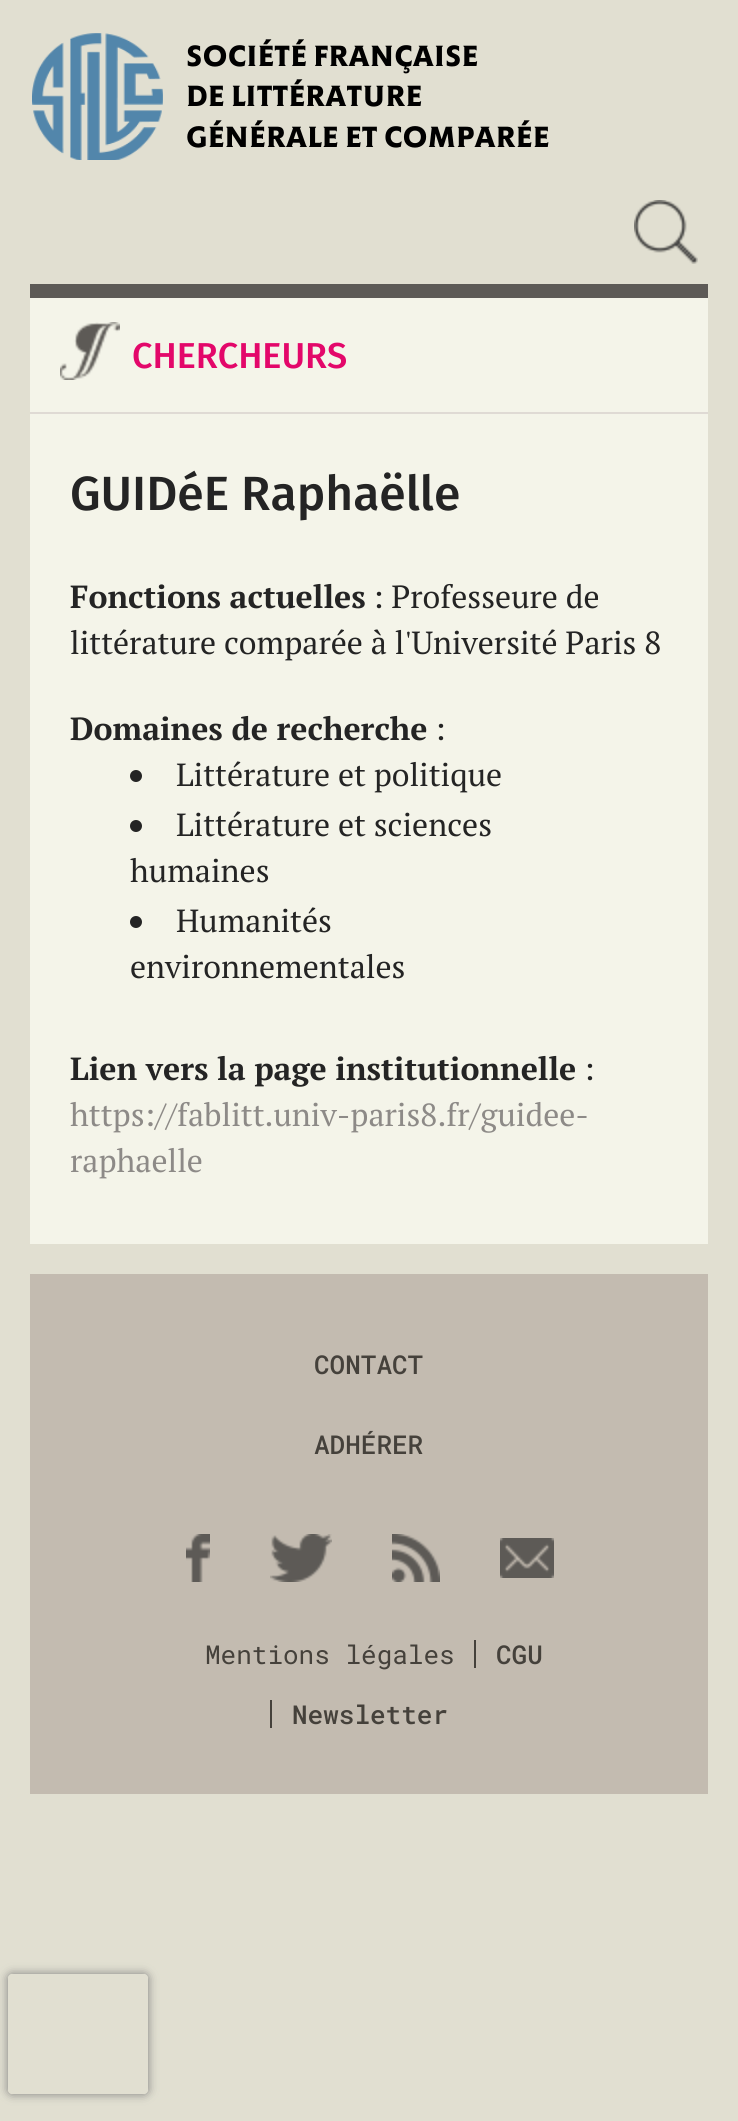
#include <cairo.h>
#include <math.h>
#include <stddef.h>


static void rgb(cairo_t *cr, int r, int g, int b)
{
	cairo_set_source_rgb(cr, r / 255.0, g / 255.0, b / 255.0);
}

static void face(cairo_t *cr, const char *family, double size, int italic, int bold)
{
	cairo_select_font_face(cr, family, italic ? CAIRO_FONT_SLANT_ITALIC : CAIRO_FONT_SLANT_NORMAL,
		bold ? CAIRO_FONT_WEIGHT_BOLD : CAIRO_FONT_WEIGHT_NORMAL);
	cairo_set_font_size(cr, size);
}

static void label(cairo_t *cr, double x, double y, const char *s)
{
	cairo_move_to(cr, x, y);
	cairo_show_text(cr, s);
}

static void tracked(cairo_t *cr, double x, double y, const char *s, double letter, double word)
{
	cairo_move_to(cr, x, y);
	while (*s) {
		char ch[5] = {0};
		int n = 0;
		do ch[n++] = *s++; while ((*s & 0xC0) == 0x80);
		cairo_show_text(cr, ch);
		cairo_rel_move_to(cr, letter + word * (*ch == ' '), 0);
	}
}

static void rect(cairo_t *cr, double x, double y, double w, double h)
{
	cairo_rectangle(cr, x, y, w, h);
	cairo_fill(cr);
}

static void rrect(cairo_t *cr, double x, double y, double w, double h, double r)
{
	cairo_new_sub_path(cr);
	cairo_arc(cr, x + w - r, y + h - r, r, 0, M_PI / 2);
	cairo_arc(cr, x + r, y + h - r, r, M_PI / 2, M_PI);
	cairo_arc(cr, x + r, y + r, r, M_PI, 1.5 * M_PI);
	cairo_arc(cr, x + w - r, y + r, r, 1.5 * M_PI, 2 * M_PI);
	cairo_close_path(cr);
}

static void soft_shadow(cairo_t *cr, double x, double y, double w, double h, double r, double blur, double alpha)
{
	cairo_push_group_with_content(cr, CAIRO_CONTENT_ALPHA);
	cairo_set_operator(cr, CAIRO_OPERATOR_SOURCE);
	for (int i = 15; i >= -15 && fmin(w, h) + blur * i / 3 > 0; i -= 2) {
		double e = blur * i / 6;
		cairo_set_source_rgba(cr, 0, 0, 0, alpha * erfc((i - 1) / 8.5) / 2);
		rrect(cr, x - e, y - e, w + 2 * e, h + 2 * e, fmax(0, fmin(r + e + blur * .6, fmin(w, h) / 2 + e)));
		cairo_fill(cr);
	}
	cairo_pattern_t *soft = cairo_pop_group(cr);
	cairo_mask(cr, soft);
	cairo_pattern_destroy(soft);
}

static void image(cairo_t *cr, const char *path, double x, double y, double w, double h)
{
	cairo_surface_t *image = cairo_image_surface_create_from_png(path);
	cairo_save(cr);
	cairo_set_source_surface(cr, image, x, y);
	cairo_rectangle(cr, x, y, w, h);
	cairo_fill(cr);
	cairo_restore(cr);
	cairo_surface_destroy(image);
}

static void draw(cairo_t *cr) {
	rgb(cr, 225, 223, 209);
	cairo_paint(cr);
	image(cr, "image0.png", 32, 33, 131, 127);
	face(cr, "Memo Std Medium", 28.75, 0, 0);
	rgb(cr, 0, 0, 0);
	tracked(cr, 186, 66, "SOCIÉTÉ FRANÇAISE", 0.25, 0);
	tracked(cr, 186, 106, "DE LITTÉRATURE", 0.25, 0);
	tracked(cr, 186, 147, "GÉNÉRALE ET COMPARÉE", 0.25, 0);
	image(cr, "image1.png", 634, 200, 64, 64);
	rgb(cr, 244, 244, 233);
	rect(cr, 30, 298, 678, 946);
	rgb(cr, 93, 90, 86);
	rect(cr, 30, 284, 678, 14);
	rgb(cr, 223, 218, 212);
	rect(cr, 30, 412, 678, 2);
	image(cr, "image2.png", 60, 322, 60, 58);
	face(cr, "Fira Sans Medium", 36, 0, 0);
	rgb(cr, 227, 7, 106);
	label(cr, 132, 368, "CHERCHEURS");
	face(cr, "Fira Sans Medium", 48, 0, 0);
	rgb(cr, 36, 36, 36);
	label(cr, 70, 510, "GUIDéE Raphaëlle");
	face(cr, "PT Serif", 32, 0, 1);
	label(cr, 70, 608, "Fonctions actuelles");
	face(cr, "PT Serif", 32, 0, 0);
	label(cr, 373, 608, ": Professeure de");
	label(cr, 70, 654, "littérature comparée à l'Université Paris 8");
	face(cr, "PT Serif", 32, 0, 1);
	label(cr, 70, 740, "Domaines de recherche");
	face(cr, "PT Serif", 32, 0, 0);
	label(cr, 435, 740, ":");
	cairo_new_path(cr);
	cairo_arc(cr, 136, 776, 6, 0, 2 * M_PI);
	cairo_fill(cr);
	label(cr, 176, 786, "Littérature et politique");
	cairo_new_path(cr);
	cairo_arc(cr, 136, 826, 6, 0, 2 * M_PI);
	cairo_fill(cr);
	label(cr, 176, 836, "Littérature et sciences");
	label(cr, 130, 882, "humaines");
	cairo_new_path(cr);
	cairo_arc(cr, 136, 922, 6, 0, 2 * M_PI);
	cairo_fill(cr);
	label(cr, 176, 932, "Humanités");
	label(cr, 130, 978, "environnementales");
	face(cr, "PT Serif", 32, 0, 1);
	label(cr, 70, 1080, "Lien vers la page institutionnelle");
	face(cr, "PT Serif", 32, 0, 0);
	label(cr, 584, 1080, ":");
	rgb(cr, 141, 138, 135);
	label(cr, 70, 1126, "https://fablitt.univ-paris8.fr/guidee-");
	label(cr, 70, 1172, "raphaelle");
	rgb(cr, 195, 187, 176);
	rect(cr, 30, 1274, 678, 520);
	face(cr, "Roboto Mono Medium", 26, 0, 0);
	rgb(cr, 69, 65, 59);
	label(cr, 314, 1374, "CONTACT");
	label(cr, 314, 1454, "ADHÉRER");
	image(cr, "image3.png", 186, 1534, 24, 48);
	image(cr, "image4.png", 270, 1534, 62, 48);
	image(cr, "image5.png", 392, 1534, 48, 48);
	image(cr, "image6.png", 500, 1538, 54, 40);
	face(cr, "Roboto Mono", 26, 0, 0);
	label(cr, 205, 1664, "Mentions légales");
	rect(cr, 474, 1640, 2, 28);
	face(cr, "Roboto Mono Medium", 26, 0, 0);
	label(cr, 496, 1664, "CGU");
	rect(cr, 270, 1700, 2, 28);
	label(cr, 292, 1724, "Newsletter");
	cairo_save(cr);
	cairo_set_fill_rule(cr, CAIRO_FILL_RULE_EVEN_ODD);
	cairo_new_path(cr);
	cairo_move_to(cr, 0, 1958);
	cairo_line_to(cr, 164, 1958);
	cairo_line_to(cr, 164, 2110);
	cairo_line_to(cr, 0, 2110);
	cairo_close_path(cr);
	cairo_move_to(cr, 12, 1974);
	cairo_line_to(cr, 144, 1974);
	cairo_curve_to(cr, 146, 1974, 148, 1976, 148, 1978);
	cairo_line_to(cr, 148, 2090);
	cairo_curve_to(cr, 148, 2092, 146, 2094, 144, 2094);
	cairo_line_to(cr, 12, 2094);
	cairo_curve_to(cr, 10, 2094, 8, 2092, 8, 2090);
	cairo_line_to(cr, 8, 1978);
	cairo_curve_to(cr, 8, 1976, 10, 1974, 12, 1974);
	cairo_close_path(cr);
	cairo_clip(cr);
	rgb(cr, 128, 128, 128);
	soft_shadow(cr, 8, 1974, 140, 120, 4, 5, 1);
	cairo_restore(cr);
}

int main(void) {
	cairo_surface_t *surface = cairo_image_surface_create(CAIRO_FORMAT_RGB24, 738, 2121);
	cairo_t *cr = cairo_create(surface);
	cairo_font_options_t *options = cairo_font_options_create();
	cairo_font_options_set_hint_metrics(options, CAIRO_HINT_METRICS_OFF);
	cairo_font_options_set_hint_style(options, CAIRO_HINT_STYLE_NONE);
	cairo_set_font_options(cr, options);
	cairo_set_miter_limit(cr, 4);
	draw(cr);
	cairo_surface_write_to_png(surface, "render.png");
	cairo_font_options_destroy(options);
	cairo_destroy(cr);
	cairo_surface_destroy(surface);
	return 0;
}
